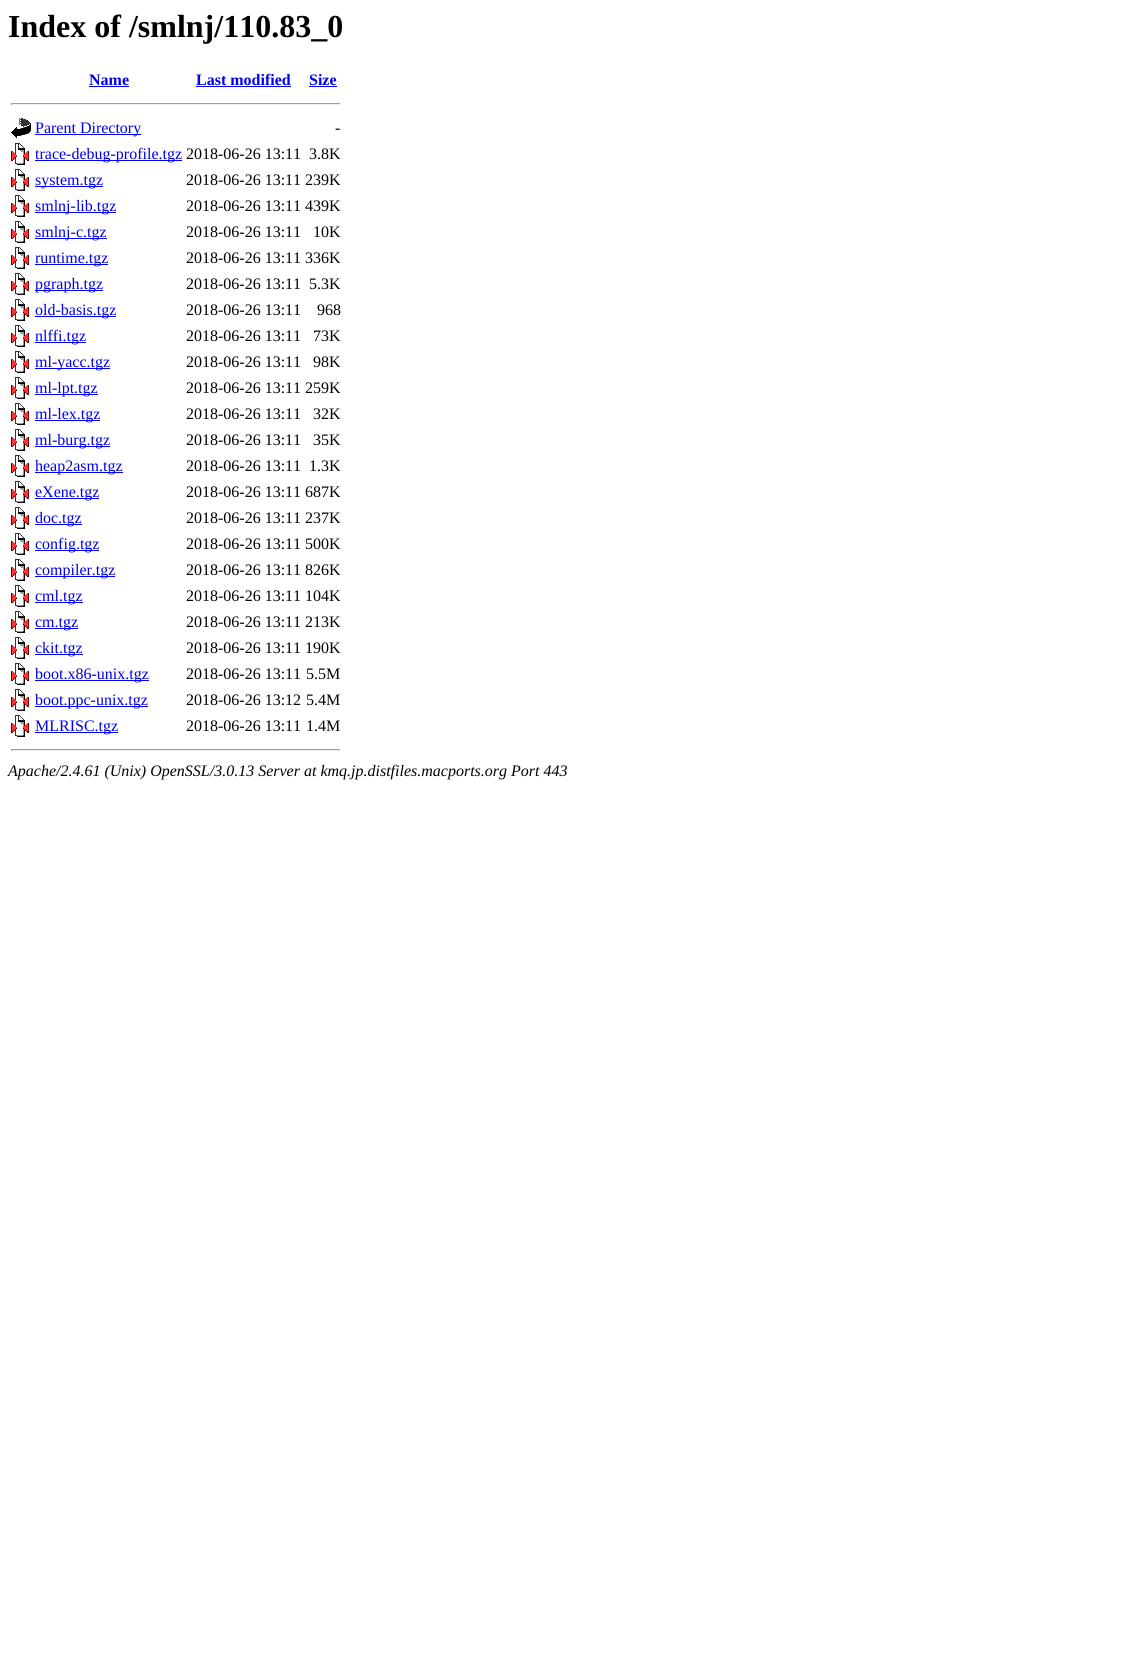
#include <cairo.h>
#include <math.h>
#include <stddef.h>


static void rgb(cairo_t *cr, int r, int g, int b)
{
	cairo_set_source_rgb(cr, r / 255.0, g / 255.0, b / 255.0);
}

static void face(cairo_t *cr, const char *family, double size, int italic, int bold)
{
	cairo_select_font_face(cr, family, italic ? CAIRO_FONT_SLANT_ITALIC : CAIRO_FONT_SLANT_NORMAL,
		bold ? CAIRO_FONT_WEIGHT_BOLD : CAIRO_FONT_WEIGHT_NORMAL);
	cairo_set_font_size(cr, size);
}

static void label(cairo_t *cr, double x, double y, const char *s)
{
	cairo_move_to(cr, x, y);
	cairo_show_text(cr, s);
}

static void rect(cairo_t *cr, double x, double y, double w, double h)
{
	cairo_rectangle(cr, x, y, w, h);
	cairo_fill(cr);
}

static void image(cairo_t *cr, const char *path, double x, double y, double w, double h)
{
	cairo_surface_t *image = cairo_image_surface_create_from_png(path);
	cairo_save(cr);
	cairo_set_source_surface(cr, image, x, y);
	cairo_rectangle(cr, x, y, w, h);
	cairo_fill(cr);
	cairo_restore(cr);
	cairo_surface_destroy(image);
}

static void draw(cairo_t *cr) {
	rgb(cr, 255, 255, 255);
	cairo_paint(cr);
	face(cr, "Liberation Serif", 32, 0, 1);
	rgb(cr, 0, 0, 0);
	label(cr, 8, 37, "Index of /smlnj/110.83_0");
	face(cr, "Liberation Serif", 16, 0, 1);
	rgb(cr, 0, 0, 238);
	label(cr, 89, 85, "Name");
	rect(cr, 89, 86, 40, 1);
	label(cr, 196, 85, "Last modified");
	rect(cr, 196, 86, 95, 1);
	label(cr, 309, 85, "Size");
	rect(cr, 309, 86, 28, 1);
	rgb(cr, 159, 159, 159);
	rect(cr, 11, 103, 330, 1);
	rgb(cr, 238, 238, 238);
	rect(cr, 340, 103, 1, 2);
	rect(cr, 11, 104, 330, 1);
	rgb(cr, 159, 159, 159);
	rect(cr, 11, 103, 1, 2);
	image(cr, "image0.png", 11, 118, 20, 20);
	rgb(cr, 0, 0, 238);
	rect(cr, 35, 134, 106, 1);
	face(cr, "Liberation Serif", 16, 0, 0);
	label(cr, 35, 133, "Parent Directory");
	rgb(cr, 0, 0, 0);
	label(cr, 335, 133, "-");
	image(cr, "image1.png", 11, 143, 18, 22);
	rgb(cr, 0, 0, 238);
	rect(cr, 35, 160, 147, 1);
	label(cr, 35, 159, "trace-debug-profile.tgz");
	rgb(cr, 0, 0, 0);
	label(cr, 186, 159, "2018-06-26 13:11");
	label(cr, 309, 159, "3.8K");
	image(cr, "image1.png", 11, 169, 18, 22);
	rgb(cr, 0, 0, 238);
	rect(cr, 35, 186, 68, 1);
	label(cr, 35, 185, "system.tgz");
	rgb(cr, 0, 0, 0);
	label(cr, 186, 185, "2018-06-26 13:11 239K");
	image(cr, "image1.png", 11, 195, 18, 22);
	rgb(cr, 0, 0, 238);
	rect(cr, 35, 212, 81, 1);
	label(cr, 35, 211, "smlnj-lib.tgz");
	rgb(cr, 0, 0, 0);
	label(cr, 186, 211, "2018-06-26 13:11 439K");
	image(cr, "image1.png", 11, 221, 18, 22);
	rgb(cr, 0, 0, 238);
	rect(cr, 35, 238, 72, 1);
	label(cr, 35, 237, "smlnj-c.tgz");
	rgb(cr, 0, 0, 0);
	label(cr, 186, 237, "2018-06-26 13:11");
	label(cr, 313, 237, "10K");
	image(cr, "image1.png", 11, 247, 18, 22);
	rgb(cr, 0, 0, 238);
	rect(cr, 35, 264, 73, 1);
	label(cr, 35, 263, "runtime.tgz");
	rgb(cr, 0, 0, 0);
	label(cr, 186, 263, "2018-06-26 13:11 336K");
	image(cr, "image1.png", 11, 273, 18, 22);
	rgb(cr, 0, 0, 238);
	rect(cr, 35, 290, 68, 1);
	label(cr, 35, 289, "pgraph.tgz");
	rgb(cr, 0, 0, 0);
	label(cr, 186, 289, "2018-06-26 13:11");
	label(cr, 309, 289, "5.3K");
	image(cr, "image1.png", 11, 299, 18, 22);
	rgb(cr, 0, 0, 238);
	rect(cr, 35, 316, 81, 1);
	label(cr, 35, 315, "old-basis.tgz");
	rgb(cr, 0, 0, 0);
	label(cr, 186, 315, "2018-06-26 13:11");
	label(cr, 317, 315, "968");
	image(cr, "image1.png", 11, 325, 18, 22);
	rgb(cr, 0, 0, 238);
	rect(cr, 35, 342, 51, 1);
	label(cr, 35, 341, "nlffi.tgz");
	rgb(cr, 0, 0, 0);
	label(cr, 186, 341, "2018-06-26 13:11");
	label(cr, 313, 341, "73K");
	image(cr, "image1.png", 11, 351, 18, 22);
	rgb(cr, 0, 0, 238);
	rect(cr, 35, 368, 75, 1);
	label(cr, 35, 367, "ml-yacc.tgz");
	rgb(cr, 0, 0, 0);
	label(cr, 186, 367, "2018-06-26 13:11");
	label(cr, 313, 367, "98K");
	image(cr, "image1.png", 11, 377, 18, 22);
	rgb(cr, 0, 0, 238);
	rect(cr, 35, 394, 63, 1);
	label(cr, 35, 393, "ml-lpt.tgz");
	rgb(cr, 0, 0, 0);
	label(cr, 186, 393, "2018-06-26 13:11 259K");
	image(cr, "image1.png", 11, 403, 18, 22);
	rgb(cr, 0, 0, 238);
	rect(cr, 35, 420, 65, 1);
	label(cr, 35, 419, "ml-lex.tgz");
	rgb(cr, 0, 0, 0);
	label(cr, 186, 419, "2018-06-26 13:11");
	label(cr, 313, 419, "32K");
	image(cr, "image1.png", 11, 429, 18, 22);
	rgb(cr, 0, 0, 238);
	rect(cr, 35, 446, 75, 1);
	label(cr, 35, 445, "ml-burg.tgz");
	rgb(cr, 0, 0, 0);
	label(cr, 186, 445, "2018-06-26 13:11");
	label(cr, 313, 445, "35K");
	image(cr, "image1.png", 11, 455, 18, 22);
	rgb(cr, 0, 0, 238);
	rect(cr, 35, 472, 88, 1);
	label(cr, 35, 471, "heap2asm.tgz");
	rgb(cr, 0, 0, 0);
	label(cr, 186, 471, "2018-06-26 13:11");
	label(cr, 309, 471, "1.3K");
	image(cr, "image1.png", 11, 481, 18, 22);
	rgb(cr, 0, 0, 238);
	rect(cr, 35, 498, 64, 1);
	label(cr, 35, 497, "eXene.tgz");
	rgb(cr, 0, 0, 0);
	label(cr, 186, 497, "2018-06-26 13:11 687K");
	image(cr, "image1.png", 11, 507, 18, 22);
	rgb(cr, 0, 0, 238);
	rect(cr, 35, 524, 47, 1);
	label(cr, 35, 523, "doc.tgz");
	rgb(cr, 0, 0, 0);
	label(cr, 186, 523, "2018-06-26 13:11 237K");
	image(cr, "image1.png", 11, 533, 18, 22);
	rgb(cr, 0, 0, 238);
	rect(cr, 35, 550, 64, 1);
	label(cr, 35, 549, "config.tgz");
	rgb(cr, 0, 0, 0);
	label(cr, 186, 549, "2018-06-26 13:11 500K");
	image(cr, "image1.png", 11, 559, 18, 22);
	rgb(cr, 0, 0, 238);
	rect(cr, 35, 576, 80, 1);
	label(cr, 35, 575, "compiler.tgz");
	rgb(cr, 0, 0, 0);
	label(cr, 186, 575, "2018-06-26 13:11 826K");
	image(cr, "image1.png", 11, 585, 18, 22);
	rgb(cr, 0, 0, 238);
	rect(cr, 35, 602, 48, 1);
	label(cr, 35, 601, "cml.tgz");
	rgb(cr, 0, 0, 0);
	label(cr, 186, 601, "2018-06-26 13:11 104K");
	image(cr, "image1.png", 11, 611, 18, 22);
	rgb(cr, 0, 0, 238);
	rect(cr, 35, 628, 43, 1);
	label(cr, 35, 627, "cm.tgz");
	rgb(cr, 0, 0, 0);
	label(cr, 186, 627, "2018-06-26 13:11 213K");
	image(cr, "image1.png", 11, 637, 18, 22);
	rgb(cr, 0, 0, 238);
	rect(cr, 35, 654, 48, 1);
	label(cr, 35, 653, "ckit.tgz");
	rgb(cr, 0, 0, 0);
	label(cr, 186, 653, "2018-06-26 13:11 190K");
	image(cr, "image1.png", 11, 663, 18, 22);
	rgb(cr, 0, 0, 238);
	rect(cr, 35, 680, 114, 1);
	label(cr, 35, 679, "boot.x86-unix.tgz");
	rgb(cr, 0, 0, 0);
	label(cr, 186, 679, "2018-06-26 13:11");
	label(cr, 306, 679, "5.5M");
	image(cr, "image1.png", 11, 689, 18, 22);
	rgb(cr, 0, 0, 238);
	rect(cr, 35, 706, 113, 1);
	label(cr, 35, 705, "boot.ppc-unix.tgz");
	rgb(cr, 0, 0, 0);
	label(cr, 186, 705, "2018-06-26 13:12");
	label(cr, 306, 705, "5.4M");
	image(cr, "image1.png", 11, 715, 18, 22);
	rgb(cr, 0, 0, 238);
	rect(cr, 35, 732, 83, 1);
	label(cr, 35, 731, "MLRISC.tgz");
	rgb(cr, 0, 0, 0);
	label(cr, 186, 731, "2018-06-26 13:11");
	label(cr, 306, 731, "1.4M");
	rgb(cr, 159, 159, 159);
	rect(cr, 11, 749, 330, 1);
	rgb(cr, 238, 238, 238);
	rect(cr, 340, 749, 1, 2);
	rect(cr, 11, 750, 330, 1);
	rgb(cr, 159, 159, 159);
	rect(cr, 11, 749, 1, 2);
	face(cr, "Liberation Serif", 16, 1, 0);
	rgb(cr, 0, 0, 0);
	label(cr, 8, 776, "Apache/2.4.61 (Unix) OpenSSL/3.0.13 Server at kmq.jp.distfiles.macports.org Port 443");
}

int main(void) {
	cairo_surface_t *surface = cairo_image_surface_create(CAIRO_FORMAT_RGB24, 1144, 1659);
	cairo_t *cr = cairo_create(surface);
	cairo_font_options_t *options = cairo_font_options_create();
	cairo_font_options_set_hint_metrics(options, CAIRO_HINT_METRICS_OFF);
	cairo_font_options_set_hint_style(options, CAIRO_HINT_STYLE_NONE);
	cairo_set_font_options(cr, options);
	cairo_set_miter_limit(cr, 4);
	draw(cr);
	cairo_surface_write_to_png(surface, "render.png");
	cairo_font_options_destroy(options);
	cairo_destroy(cr);
	cairo_surface_destroy(surface);
	return 0;
}
